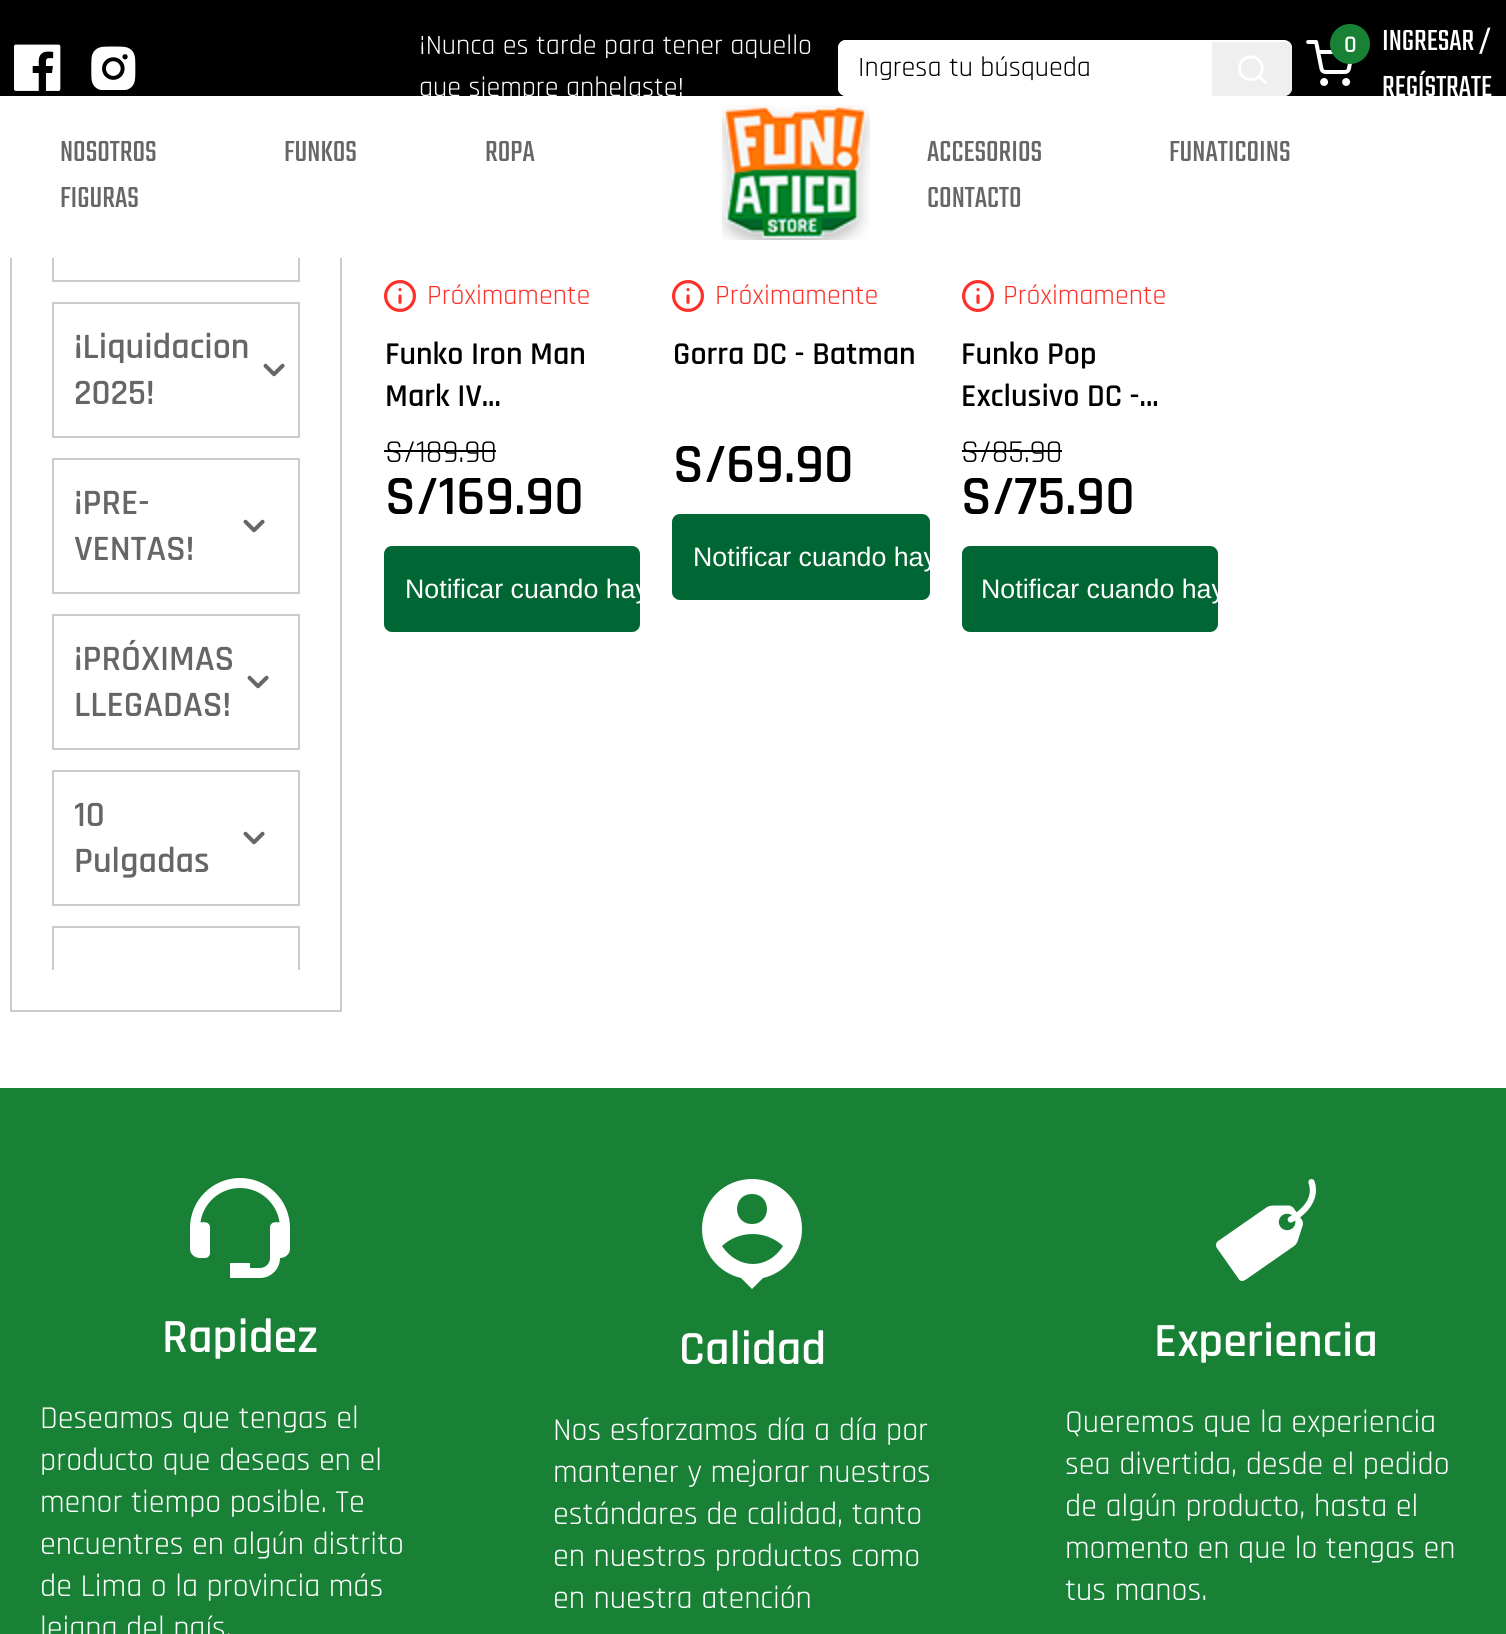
#include <cairo.h>
#include <math.h>
#include <stddef.h>


static void rgb(cairo_t *cr, int r, int g, int b)
{
	cairo_set_source_rgb(cr, r / 255.0, g / 255.0, b / 255.0);
}

static void face(cairo_t *cr, const char *family, double size, int italic, int bold)
{
	cairo_select_font_face(cr, family, italic ? CAIRO_FONT_SLANT_ITALIC : CAIRO_FONT_SLANT_NORMAL,
		bold ? CAIRO_FONT_WEIGHT_BOLD : CAIRO_FONT_WEIGHT_NORMAL);
	cairo_set_font_size(cr, size);
}

static void label(cairo_t *cr, double x, double y, const char *s)
{
	cairo_move_to(cr, x, y);
	cairo_show_text(cr, s);
}

static void rect(cairo_t *cr, double x, double y, double w, double h)
{
	cairo_rectangle(cr, x, y, w, h);
	cairo_fill(cr);
}

static void rrect(cairo_t *cr, double x, double y, double w, double h, double r)
{
	cairo_new_sub_path(cr);
	cairo_arc(cr, x + w - r, y + h - r, r, 0, M_PI / 2);
	cairo_arc(cr, x + r, y + h - r, r, M_PI / 2, M_PI);
	cairo_arc(cr, x + r, y + r, r, M_PI, 1.5 * M_PI);
	cairo_arc(cr, x + w - r, y + r, r, 1.5 * M_PI, 2 * M_PI);
	cairo_close_path(cr);
}

static void image(cairo_t *cr, const char *path, double x, double y, double w, double h)
{
	cairo_surface_t *image = cairo_image_surface_create_from_png(path);
	cairo_save(cr);
	cairo_set_source_surface(cr, image, x, y);
	cairo_rectangle(cr, x, y, w, h);
	cairo_fill(cr);
	cairo_restore(cr);
	cairo_surface_destroy(image);
}

static void draw(cairo_t *cr) {
	rgb(cr, 255, 255, 255);
	cairo_paint(cr);
	cairo_rectangle(cr, 11, -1, 330, 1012);
	rgb(cr, 204, 204, 204);
	cairo_stroke(cr);
	rgb(cr, 0, 0, 0);
	rect(cr, 0, 0, 1506, 96);
	image(cr, "image0.png", 14, 44, 47, 47);
	image(cr, "image1.png", 91, 46, 45, 44);
	face(cr, "Rajdhani", 28, 0, 0);
	rgb(cr, 255, 255, 255);
	label(cr, 419, 54, "¡Nunca es tarde para tener aquello");
	label(cr, 419, 96, "que siempre anhelaste!");
	image(cr, "image2.png", 1306, 40, 46, 46);
	rgb(cr, 25, 129, 54);
	cairo_arc(cr, 1350, 44, 20, 0, 2 * M_PI);
	cairo_fill(cr);
	face(cr, "Rajdhani SemiBold", 24, 0, 0);
	rgb(cr, 255, 255, 255);
	label(cr, 1344, 52, "0");
	face(cr, "Teko", 32, 0, 0);
	label(cr, 1382, 50, "INGRESAR /");
	label(cr, 1382, 96, "REGÍSTRATE");
	rrect(cr, 838, 40, 454, 56, 8);
	cairo_fill(cr);
	cairo_new_path(cr);
	cairo_move_to(cr, 846, 40);
	cairo_line_to(cr, 1212, 40);
	cairo_line_to(cr, 1212, 96);
	cairo_line_to(cr, 846, 96);
	cairo_curve_to(cr, 841.5, 96, 838, 92.5, 838, 88);
	cairo_line_to(cr, 838, 48);
	cairo_curve_to(cr, 838, 43.5, 841.5, 40, 846, 40);
	cairo_close_path(cr);
	cairo_fill(cr);
	face(cr, "Rajdhani", 28, 0, 0);
	rgb(cr, 0, 0, 0);
	label(cr, 858, 76, "Ingresa tu búsqueda");
	cairo_save(cr);
	rrect(cr, 838, 40, 454, 56, 8);
	cairo_clip(cr);
	rgb(cr, 239, 239, 239);
	cairo_new_path(cr);
	cairo_move_to(cr, 1212, 42);
	cairo_line_to(cr, 1292, 42);
	cairo_line_to(cr, 1292, 88);
	cairo_curve_to(cr, 1292, 92.5, 1288.5, 96, 1284, 96);
	cairo_line_to(cr, 1212, 96);
	cairo_close_path(cr);
	cairo_fill(cr);
	cairo_restore(cr);
	image(cr, "image3.png", 1238, 55, 29, 29);
	cairo_rectangle(cr, 53, 101, 246, 180);
	rgb(cr, 204, 204, 204);
	cairo_stroke(cr);
	rgb(cr, 255, 255, 255);
	rect(cr, 10, 96, 332, 162);
	face(cr, "Teko", 32, 0, 0);
	rgb(cr, 102, 102, 102);
	label(cr, 60, 161, "NOSOTROS");
	label(cr, 284, 161, "FUNKOS");
	label(cr, 485, 161, "ROPA");
	label(cr, 60, 207, "FIGURAS");
	image(cr, "image4.png", 722, 105, 148, 135);
	label(cr, 927, 161, "ACCESORIOS");
	label(cr, 1169, 161, "FUNATICOINS");
	label(cr, 927, 207, "CONTACTO");
	cairo_rectangle(cr, 53, 303, 246, 134);
	rgb(cr, 204, 204, 204);
	cairo_stroke(cr);
	face(cr, "Rajdhani SemiBold", 36, 0, 0);
	rgb(cr, 102, 102, 102);
	label(cr, 74, 358, "¡Liquidacion");
	label(cr, 74, 404, "2025!");
	image(cr, "image5.png", 263, 363, 22, 14);
	cairo_rectangle(cr, 53, 459, 246, 134);
	rgb(cr, 204, 204, 204);
	cairo_stroke(cr);
	rgb(cr, 102, 102, 102);
	label(cr, 74, 514, "¡PRE-");
	label(cr, 74, 560, "VENTAS!");
	image(cr, "image5.png", 243, 519, 22, 14);
	cairo_rectangle(cr, 53, 615, 246, 134);
	rgb(cr, 204, 204, 204);
	cairo_stroke(cr);
	rgb(cr, 102, 102, 102);
	label(cr, 74, 670, "¡PRÓXIMAS");
	label(cr, 74, 716, "LLEGADAS!");
	image(cr, "image5.png", 247, 675, 22, 14);
	cairo_rectangle(cr, 53, 771, 246, 134);
	rgb(cr, 204, 204, 204);
	cairo_stroke(cr);
	rgb(cr, 102, 102, 102);
	label(cr, 74, 826, "10");
	label(cr, 74, 872, "Pulgadas");
	image(cr, "image5.png", 243, 831, 22, 14);
	cairo_save(cr);
	cairo_rectangle(cr, 52, 0, 248, 970);
	cairo_clip(cr);
	cairo_rectangle(cr, 53, 927, 246, 134);
	rgb(cr, 204, 204, 204);
	cairo_stroke(cr);
	cairo_restore(cr);
	image(cr, "image6.png", 384, 280, 32, 32);
	face(cr, "Rajdhani", 28, 0, 0);
	rgb(cr, 255, 48, 41);
	label(cr, 427, 304, "Próximamente");
	face(cr, "Rajdhani SemiBold", 32, 0, 0);
	rgb(cr, 0, 0, 0);
	label(cr, 385, 364, "Funko Iron Man");
	label(cr, 385, 406, "Mark IV...");
	face(cr, "Rajdhani", 32, 0, 0);
	label(cr, 385, 462, "S/189.90");
	rect(cr, 384, 450, 112, 2);
	face(cr, "Rajdhani SemiBold", 56, 0, 0);
	label(cr, 385, 514, "S/169.90");
	rgb(cr, 0, 102, 51);
	rrect(cr, 384, 546, 256, 86, 8);
	cairo_fill(cr);
	cairo_save(cr);
	rrect(cr, 384, 546, 256, 86, 8);
	cairo_clip(cr);
	face(cr, "Liberation Sans", 26.75, 0, 0);
	rgb(cr, 255, 255, 255);
	label(cr, 405, 598, "Notificar cuando hay");
	cairo_restore(cr);
	image(cr, "image6.png", 672, 280, 32, 32);
	face(cr, "Rajdhani", 28, 0, 0);
	rgb(cr, 255, 48, 41);
	label(cr, 715, 304, "Próximamente");
	face(cr, "Rajdhani SemiBold", 32, 0, 0);
	rgb(cr, 0, 0, 0);
	label(cr, 673, 364, "Gorra DC - Batman");
	face(cr, "Rajdhani SemiBold", 56, 0, 0);
	label(cr, 673, 482, "S/69.90");
	rgb(cr, 0, 102, 51);
	rrect(cr, 672, 514, 258, 86, 8);
	cairo_fill(cr);
	cairo_save(cr);
	rrect(cr, 672, 514, 258, 86, 8);
	cairo_clip(cr);
	face(cr, "Liberation Sans", 26.75, 0, 0);
	rgb(cr, 255, 255, 255);
	label(cr, 693, 566, "Notificar cuando hay");
	cairo_restore(cr);
	image(cr, "image6.png", 962, 280, 32, 32);
	face(cr, "Rajdhani", 28, 0, 0);
	rgb(cr, 255, 48, 41);
	label(cr, 1003, 304, "Próximamente");
	face(cr, "Rajdhani SemiBold", 32, 0, 0);
	rgb(cr, 0, 0, 0);
	label(cr, 961, 364, "Funko Pop");
	label(cr, 961, 406, "Exclusivo DC -...");
	face(cr, "Rajdhani", 32, 0, 0);
	label(cr, 961, 462, "S/85.90");
	rect(cr, 962, 450, 100, 2);
	face(cr, "Rajdhani SemiBold", 56, 0, 0);
	label(cr, 961, 514, "S/75.90");
	rgb(cr, 0, 102, 51);
	rrect(cr, 962, 546, 256, 86, 8);
	cairo_fill(cr);
	cairo_save(cr);
	rrect(cr, 962, 546, 256, 86, 8);
	cairo_clip(cr);
	face(cr, "Liberation Sans", 26.75, 0, 0);
	rgb(cr, 255, 255, 255);
	label(cr, 981, 598, "Notificar cuando hay");
	cairo_restore(cr);
	rgb(cr, 25, 129, 54);
	rect(cr, 0, 1088, 1506, 546);
	image(cr, "image7.png", 190, 1178, 100, 100);
	face(cr, "Rajdhani SemiBold", 48, 0, 0);
	rgb(cr, 255, 255, 255);
	label(cr, 162, 1352, "Rapidez");
	face(cr, "Rajdhani", 32, 0, 0);
	label(cr, 40, 1428, "Deseamos que tengas el");
	label(cr, 40, 1470, "producto que deseas en el");
	label(cr, 40, 1512, "menor tiempo posible. Te");
	label(cr, 40, 1554, "encuentres en algún distrito");
	label(cr, 40, 1596, "de Lima o la provincia más");
	label(cr, 40, 1638, "lejana del país.");
	cairo_new_path(cr);
	cairo_move_to(cr, 763, 1278);
	cairo_line_to(cr, 752, 1289);
	cairo_line_to(cr, 741, 1278);
	cairo_curve_to(cr, 719, 1273, 702, 1253, 702, 1229);
	cairo_curve_to(cr, 702, 1201, 724, 1179, 752, 1179);
	cairo_curve_to(cr, 780, 1179, 802, 1201, 802, 1229);
	cairo_curve_to(cr, 802, 1253, 785, 1273, 763, 1278);
	cairo_close_path(cr);
	cairo_move_to(cr, 722, 1246);
	cairo_curve_to(cr, 738, 1270, 768, 1270, 783, 1246);
	cairo_curve_to(cr, 766, 1230, 739, 1230, 722, 1246);
	cairo_close_path(cr);
	cairo_move_to(cr, 752, 1224);
	cairo_curve_to(cr, 772, 1224, 772, 1194, 752, 1194);
	cairo_curve_to(cr, 732, 1194, 732, 1224, 752, 1224);
	cairo_close_path(cr);
	cairo_fill(cr);
	face(cr, "Rajdhani SemiBold", 48, 0, 0);
	label(cr, 679, 1364, "Calidad");
	face(cr, "Rajdhani", 32, 0, 0);
	label(cr, 553, 1440, "Nos esforzamos día a día por");
	label(cr, 553, 1482, "mantener y mejorar nuestros");
	label(cr, 553, 1524, "estándares de calidad, tanto");
	label(cr, 553, 1566, "en nuestros productos como");
	label(cr, 553, 1608, "en nuestra atención");
	image(cr, "image8.png", 1216, 1179, 100, 102);
	face(cr, "Rajdhani SemiBold", 48, 0, 0);
	label(cr, 1154, 1356, "Experiencia");
	face(cr, "Rajdhani", 32, 0, 0);
	label(cr, 1065, 1432, "Queremos que la experiencia");
	label(cr, 1065, 1474, "sea divertida, desde el pedido");
	label(cr, 1065, 1516, "de algún producto, hasta el");
	label(cr, 1065, 1558, "momento en que lo tengas en");
	label(cr, 1065, 1600, "tus manos.");
}

int main(void) {
	cairo_surface_t *surface = cairo_image_surface_create(CAIRO_FORMAT_RGB24, 1506, 1634);
	cairo_t *cr = cairo_create(surface);
	cairo_font_options_t *options = cairo_font_options_create();
	cairo_font_options_set_hint_metrics(options, CAIRO_HINT_METRICS_OFF);
	cairo_font_options_set_hint_style(options, CAIRO_HINT_STYLE_NONE);
	cairo_set_font_options(cr, options);
	cairo_set_miter_limit(cr, 4);
	draw(cr);
	cairo_surface_write_to_png(surface, "render.png");
	cairo_font_options_destroy(options);
	cairo_destroy(cr);
	cairo_surface_destroy(surface);
	return 0;
}
